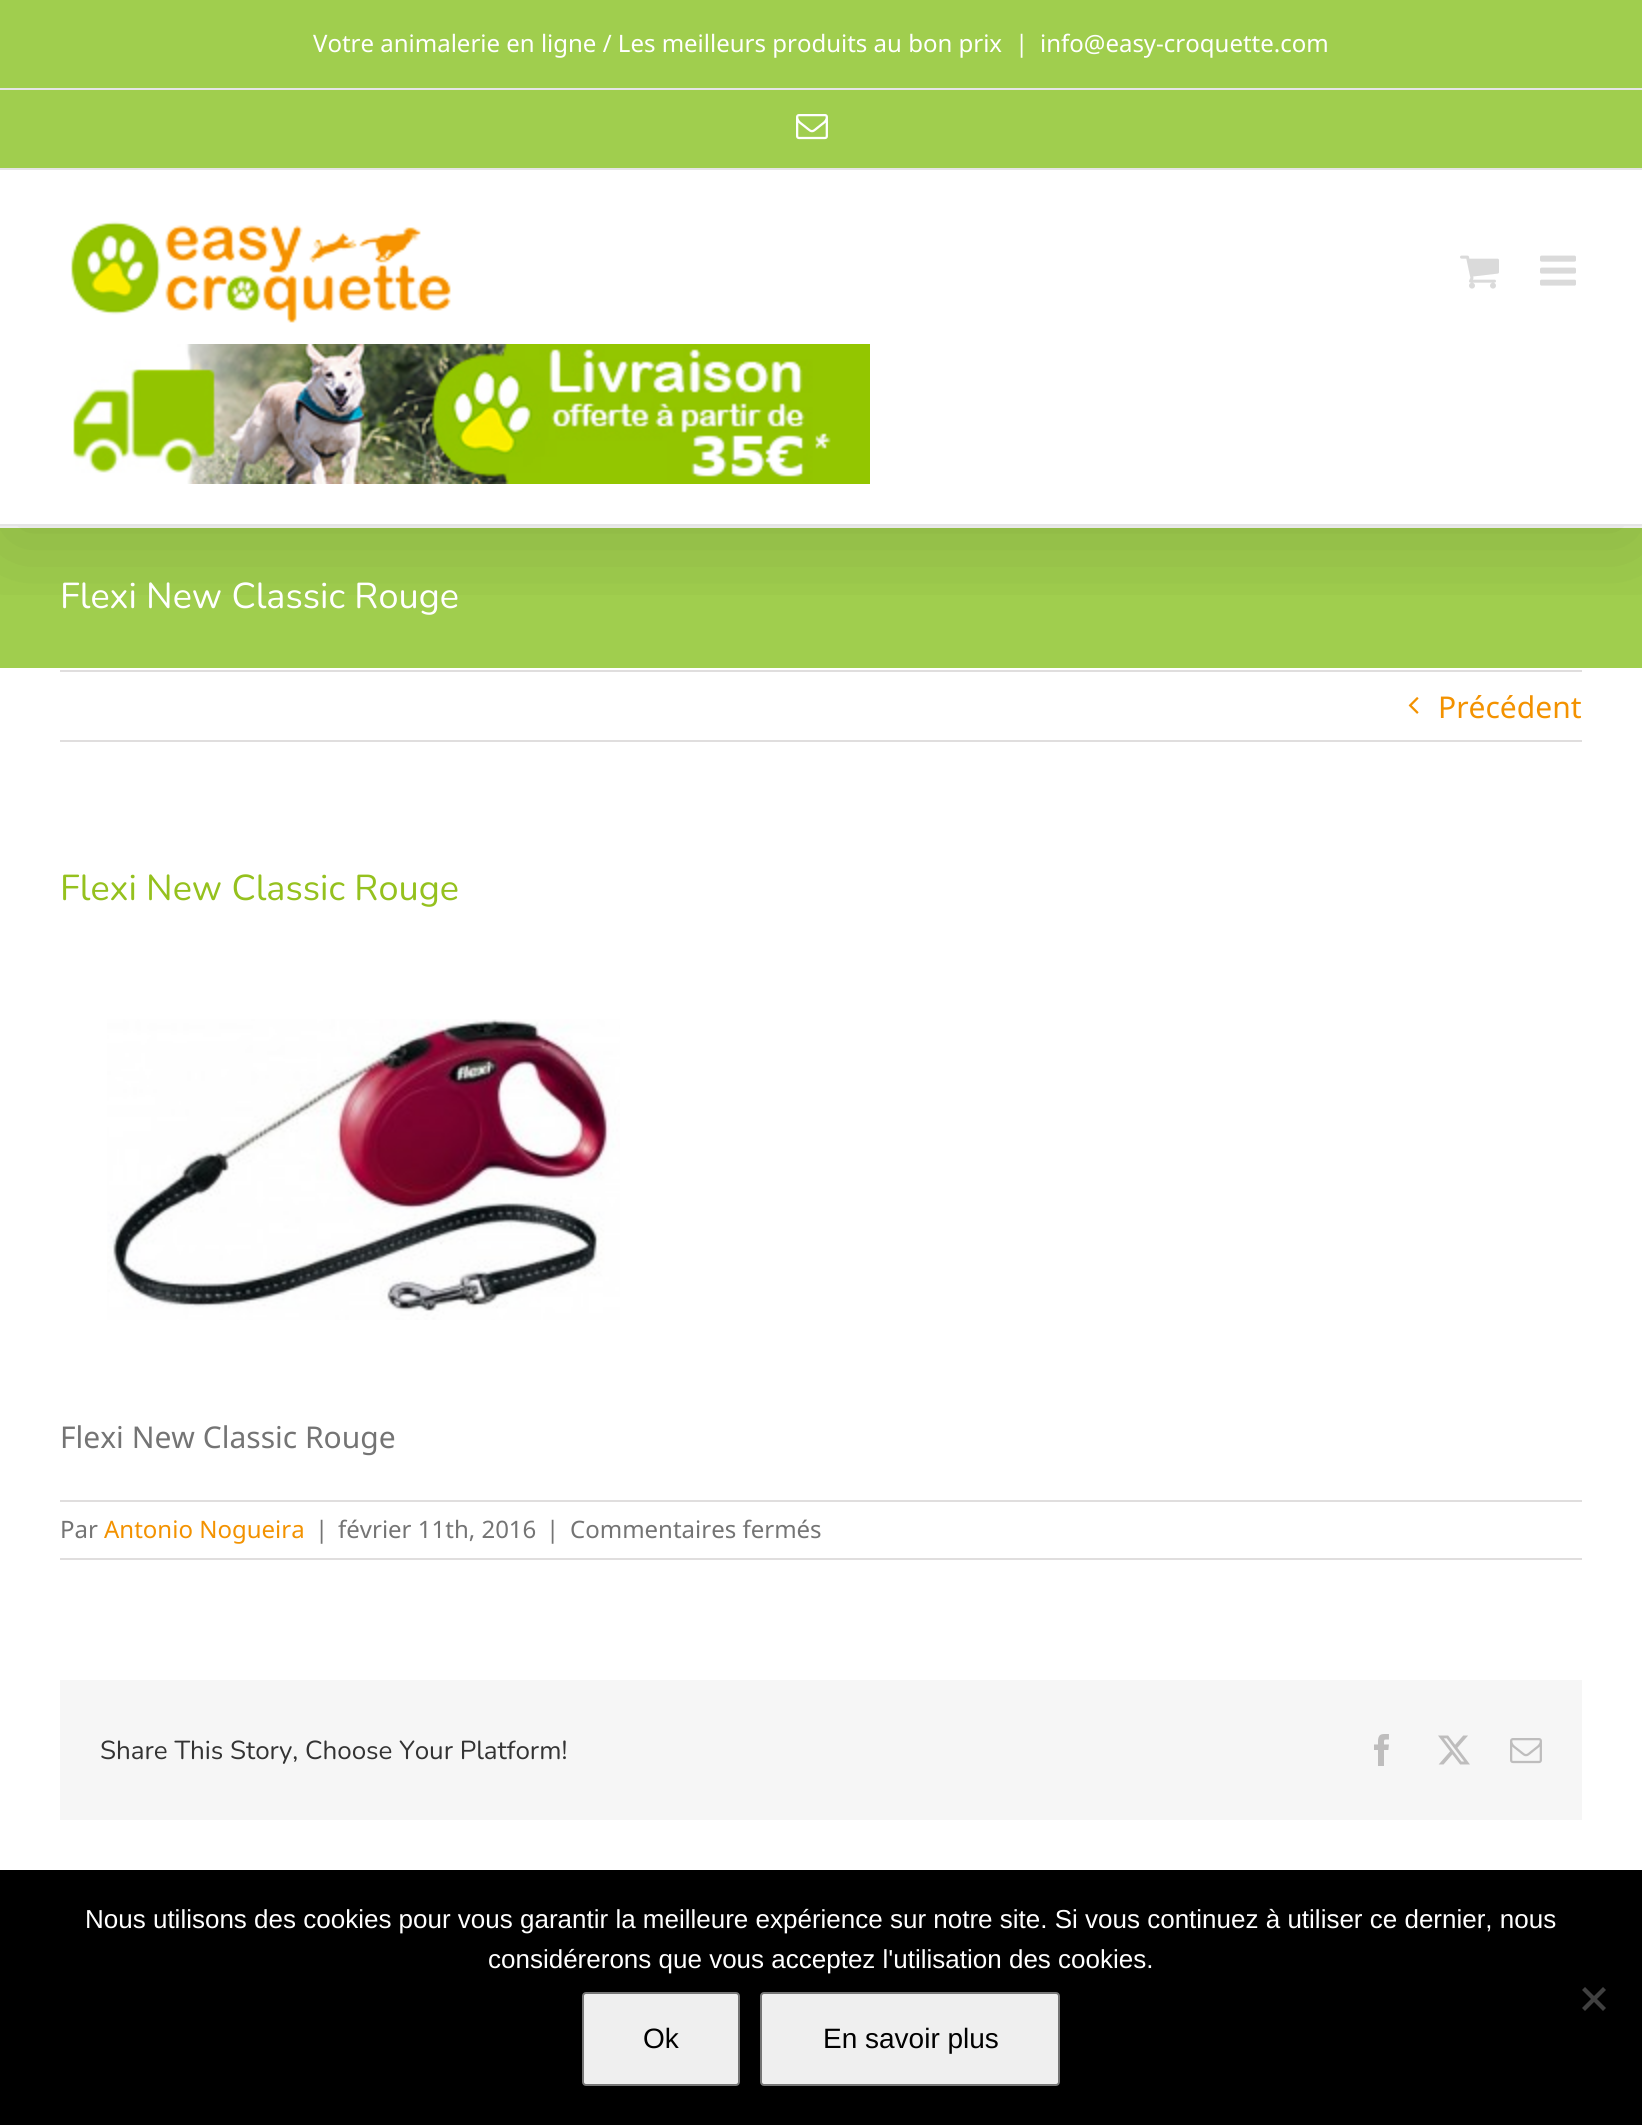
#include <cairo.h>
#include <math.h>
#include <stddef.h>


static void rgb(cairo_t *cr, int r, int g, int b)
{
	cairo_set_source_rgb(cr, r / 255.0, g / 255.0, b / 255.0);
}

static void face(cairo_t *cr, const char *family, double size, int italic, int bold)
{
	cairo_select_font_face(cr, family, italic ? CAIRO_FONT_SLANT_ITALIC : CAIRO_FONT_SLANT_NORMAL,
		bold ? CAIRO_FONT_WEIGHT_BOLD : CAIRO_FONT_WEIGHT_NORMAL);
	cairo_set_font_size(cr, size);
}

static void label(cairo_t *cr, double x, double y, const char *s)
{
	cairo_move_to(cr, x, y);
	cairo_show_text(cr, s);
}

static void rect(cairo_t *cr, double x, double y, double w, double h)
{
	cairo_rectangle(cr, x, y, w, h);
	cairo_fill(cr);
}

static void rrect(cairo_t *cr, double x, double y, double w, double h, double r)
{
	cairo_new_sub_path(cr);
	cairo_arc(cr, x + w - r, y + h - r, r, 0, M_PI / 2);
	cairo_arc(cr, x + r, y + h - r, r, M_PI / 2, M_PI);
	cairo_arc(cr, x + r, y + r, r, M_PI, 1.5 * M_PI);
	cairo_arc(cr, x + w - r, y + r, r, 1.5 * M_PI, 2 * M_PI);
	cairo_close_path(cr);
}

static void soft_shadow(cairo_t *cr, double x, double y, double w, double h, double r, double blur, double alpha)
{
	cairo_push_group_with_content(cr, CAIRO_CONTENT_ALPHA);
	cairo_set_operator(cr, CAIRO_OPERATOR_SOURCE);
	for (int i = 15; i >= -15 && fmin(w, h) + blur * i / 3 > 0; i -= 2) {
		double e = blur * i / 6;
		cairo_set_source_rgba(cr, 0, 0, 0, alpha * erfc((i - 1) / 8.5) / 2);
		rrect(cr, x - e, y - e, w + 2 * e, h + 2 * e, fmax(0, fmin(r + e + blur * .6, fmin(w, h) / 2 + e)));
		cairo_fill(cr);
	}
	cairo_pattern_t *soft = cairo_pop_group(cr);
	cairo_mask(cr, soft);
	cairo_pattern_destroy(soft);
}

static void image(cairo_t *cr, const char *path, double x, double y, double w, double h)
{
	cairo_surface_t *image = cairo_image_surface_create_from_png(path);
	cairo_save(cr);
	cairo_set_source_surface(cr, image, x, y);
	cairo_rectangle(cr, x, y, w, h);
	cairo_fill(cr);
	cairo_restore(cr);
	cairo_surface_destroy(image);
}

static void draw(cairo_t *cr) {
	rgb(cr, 255, 255, 255);
	cairo_paint(cr);
	rgb(cr, 160, 206, 78);
	rect(cr, 0, 528, 1642, 140);
	rgb(cr, 224, 222, 222);
	rect(cr, 60, 670, 1522, 2);
	cairo_save(cr);
	cairo_rectangle(cr, 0, 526, 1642, 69);
	cairo_clip(cr);
	rgb(cr, 0, 0, 0);
	soft_shadow(cr, 4, 24, 1634, 518, 0, 50, 0.14);
	cairo_restore(cr);
	rgb(cr, 160, 206, 78);
	rect(cr, 0, 0, 1642, 168);
	rgb(cr, 229, 229, 229);
	rect(cr, 0, 168, 1642, 2);
	rect(cr, 0, 88, 1642, 2);
	face(cr, "Noto Sans", 24, 0, 0);
	rgb(cr, 255, 255, 255);
	label(cr, 313, 52, "Votre animalerie en ligne / Les meilleurs produits au bon prix");
	label(cr, 1015, 52, "|");
	label(cr, 1040, 52, "info@easy-croquette.com");
	image(cr, "image0.png", 796, 114, 32, 26);
	rgb(cr, 229, 229, 229);
	rect(cr, 0, 524, 1642, 2);
	image(cr, "image1.png", 70, 221, 381, 102);
	image(cr, "image2.png", 73, 344, 797, 140);
	image(cr, "image3.png", 1460, 255, 39, 34);
	image(cr, "image4.png", 1540, 255, 36, 31);
	face(cr, "Nunito", 36, 0, 0);
	rgb(cr, 255, 255, 255);
	label(cr, 60, 608, "Flexi New Classic Rouge");
	rgb(cr, 224, 222, 222);
	rect(cr, 60, 740, 1522, 2);
	image(cr, "image5.png", 1408, 697, 11, 17);
	face(cr, "Noto Sans", 30, 0, 0);
	rgb(cr, 243, 146, 0);
	label(cr, 1438, 718, "Précédent");
	face(cr, "Nunito", 36, 0, 0);
	rgb(cr, 149, 193, 30);
	label(cr, 60, 900, "Flexi New Classic Rouge");
	image(cr, "image6.png", 107, 1019, 513, 301);
	face(cr, "Noto Sans", 30, 0, 0);
	rgb(cr, 116, 116, 116);
	label(cr, 60, 1448, "Flexi New Classic Rouge");
	rgb(cr, 224, 222, 222);
	rect(cr, 60, 1500, 1522, 2);
	rect(cr, 60, 1558, 1522, 2);
	face(cr, "Noto Sans", 24, 0, 0);
	rgb(cr, 116, 116, 116);
	label(cr, 60, 1538, "Par");
	rgb(cr, 243, 146, 0);
	label(cr, 104, 1538, "Antonio Nogueira");
	rgb(cr, 116, 116, 116);
	label(cr, 315, 1538, "|");
	label(cr, 338, 1538, "février 11th, 2016");
	label(cr, 546, 1538, "|");
	label(cr, 570, 1538, "Commentaires fermés");
	rgb(cr, 246, 246, 246);
	rect(cr, 60, 1680, 1522, 140);
	face(cr, "Nunito", 26, 0, 0);
	rgb(cr, 51, 51, 51);
	label(cr, 100, 1759, "Share This Story, Choose Your Platform!");
	image(cr, "image7.png", 1374, 1734, 15, 32);
	image(cr, "image8.png", 1438, 1735, 32, 30);
	image(cr, "image9.png", 1510, 1738, 32, 26);
	rgb(cr, 0, 0, 0);
	rect(cr, 0, 1870, 1642, 255);
	face(cr, "Liberation Sans", 26, 0, 0);
	rgb(cr, 255, 255, 255);
	label(cr, 85, 1928, "Nous utilisons des cookies pour vous garantir la meilleure expérience sur notre site. Si vous continuez à utiliser ce dernier, nous");
	label(cr, 488, 1968, "considérerons que vous acceptez l'utilisation des cookies.");
	rgb(cr, 64, 64, 64);
	cairo_new_path(cr);
	cairo_move_to(cr, 1603, 1987);
	cairo_line_to(cr, 1606, 1990);
	cairo_line_to(cr, 1585, 2011);
	cairo_line_to(cr, 1582, 2008);
	cairo_close_path(cr);
	cairo_fill(cr);
	cairo_new_path(cr);
	cairo_move_to(cr, 1582, 1990);
	cairo_line_to(cr, 1585, 1987);
	cairo_line_to(cr, 1606, 2008);
	cairo_line_to(cr, 1603, 2011);
	cairo_close_path(cr);
	cairo_fill(cr);
	rgb(cr, 239, 239, 239);
	rrect(cr, 583, 1993, 156, 92, 3);
	cairo_fill_preserve(cr);
	rgb(cr, 118, 118, 118);
	cairo_stroke(cr);
	face(cr, "Liberation Sans", 28, 0, 0);
	rgb(cr, 0, 0, 0);
	label(cr, 643, 2048, "Ok");
	rgb(cr, 239, 239, 239);
	rrect(cr, 761, 1993, 298, 92, 3);
	cairo_fill_preserve(cr);
	rgb(cr, 118, 118, 118);
	cairo_stroke(cr);
	rgb(cr, 0, 0, 0);
	label(cr, 823, 2048, "En savoir plus");
}

int main(void) {
	cairo_surface_t *surface = cairo_image_surface_create(CAIRO_FORMAT_RGB24, 1642, 2125);
	cairo_t *cr = cairo_create(surface);
	cairo_font_options_t *options = cairo_font_options_create();
	cairo_font_options_set_hint_metrics(options, CAIRO_HINT_METRICS_OFF);
	cairo_font_options_set_hint_style(options, CAIRO_HINT_STYLE_NONE);
	cairo_set_font_options(cr, options);
	cairo_set_miter_limit(cr, 4);
	draw(cr);
	cairo_surface_write_to_png(surface, "render.png");
	cairo_font_options_destroy(options);
	cairo_destroy(cr);
	cairo_surface_destroy(surface);
	return 0;
}
